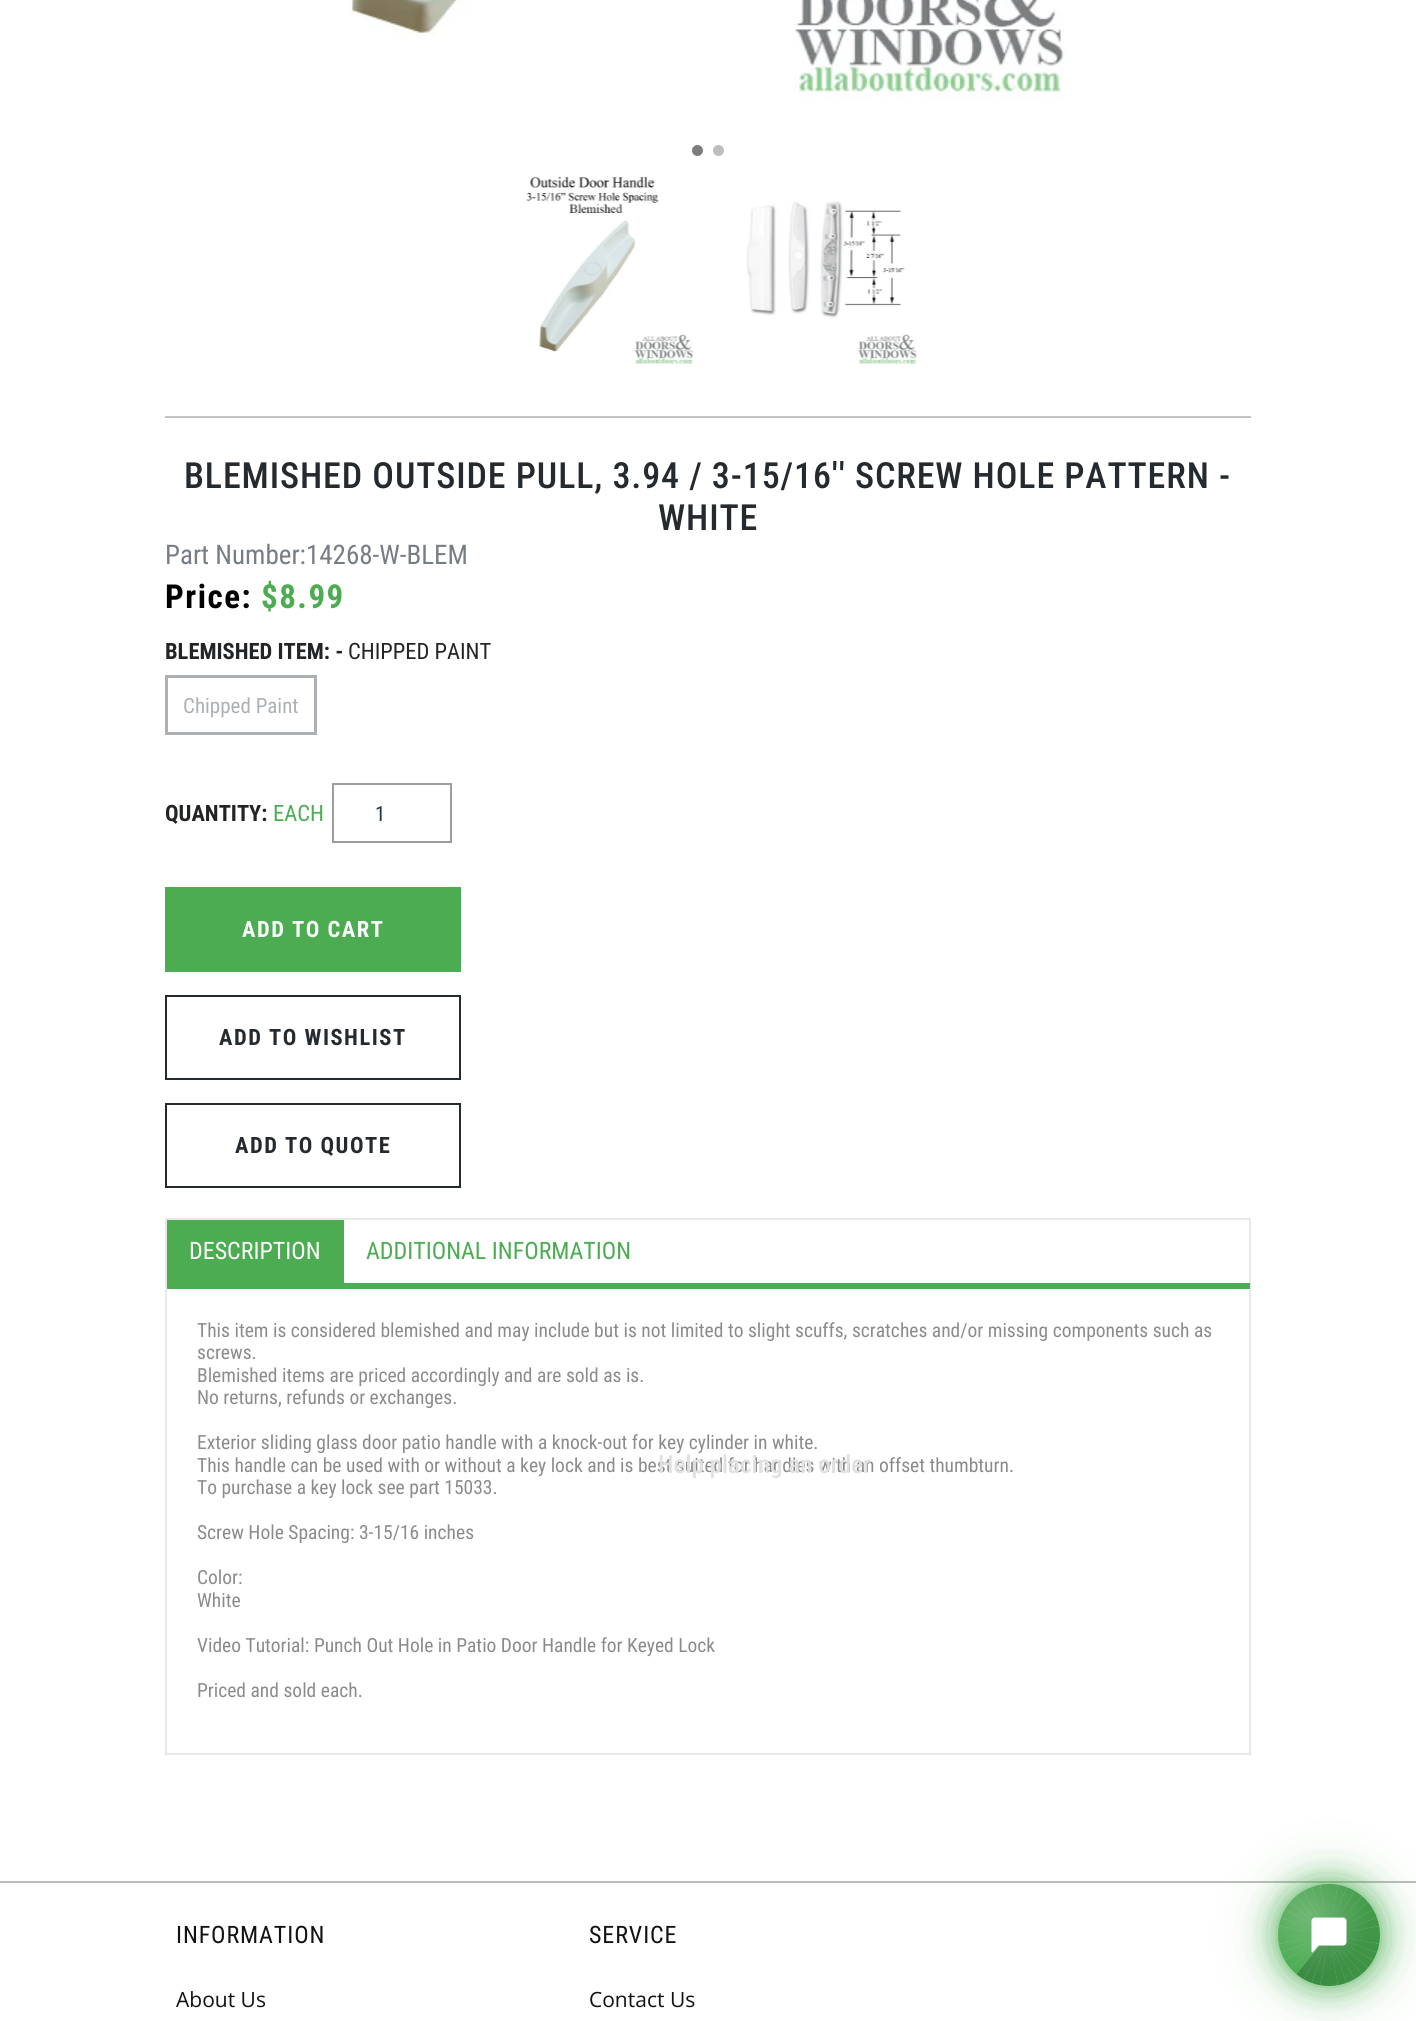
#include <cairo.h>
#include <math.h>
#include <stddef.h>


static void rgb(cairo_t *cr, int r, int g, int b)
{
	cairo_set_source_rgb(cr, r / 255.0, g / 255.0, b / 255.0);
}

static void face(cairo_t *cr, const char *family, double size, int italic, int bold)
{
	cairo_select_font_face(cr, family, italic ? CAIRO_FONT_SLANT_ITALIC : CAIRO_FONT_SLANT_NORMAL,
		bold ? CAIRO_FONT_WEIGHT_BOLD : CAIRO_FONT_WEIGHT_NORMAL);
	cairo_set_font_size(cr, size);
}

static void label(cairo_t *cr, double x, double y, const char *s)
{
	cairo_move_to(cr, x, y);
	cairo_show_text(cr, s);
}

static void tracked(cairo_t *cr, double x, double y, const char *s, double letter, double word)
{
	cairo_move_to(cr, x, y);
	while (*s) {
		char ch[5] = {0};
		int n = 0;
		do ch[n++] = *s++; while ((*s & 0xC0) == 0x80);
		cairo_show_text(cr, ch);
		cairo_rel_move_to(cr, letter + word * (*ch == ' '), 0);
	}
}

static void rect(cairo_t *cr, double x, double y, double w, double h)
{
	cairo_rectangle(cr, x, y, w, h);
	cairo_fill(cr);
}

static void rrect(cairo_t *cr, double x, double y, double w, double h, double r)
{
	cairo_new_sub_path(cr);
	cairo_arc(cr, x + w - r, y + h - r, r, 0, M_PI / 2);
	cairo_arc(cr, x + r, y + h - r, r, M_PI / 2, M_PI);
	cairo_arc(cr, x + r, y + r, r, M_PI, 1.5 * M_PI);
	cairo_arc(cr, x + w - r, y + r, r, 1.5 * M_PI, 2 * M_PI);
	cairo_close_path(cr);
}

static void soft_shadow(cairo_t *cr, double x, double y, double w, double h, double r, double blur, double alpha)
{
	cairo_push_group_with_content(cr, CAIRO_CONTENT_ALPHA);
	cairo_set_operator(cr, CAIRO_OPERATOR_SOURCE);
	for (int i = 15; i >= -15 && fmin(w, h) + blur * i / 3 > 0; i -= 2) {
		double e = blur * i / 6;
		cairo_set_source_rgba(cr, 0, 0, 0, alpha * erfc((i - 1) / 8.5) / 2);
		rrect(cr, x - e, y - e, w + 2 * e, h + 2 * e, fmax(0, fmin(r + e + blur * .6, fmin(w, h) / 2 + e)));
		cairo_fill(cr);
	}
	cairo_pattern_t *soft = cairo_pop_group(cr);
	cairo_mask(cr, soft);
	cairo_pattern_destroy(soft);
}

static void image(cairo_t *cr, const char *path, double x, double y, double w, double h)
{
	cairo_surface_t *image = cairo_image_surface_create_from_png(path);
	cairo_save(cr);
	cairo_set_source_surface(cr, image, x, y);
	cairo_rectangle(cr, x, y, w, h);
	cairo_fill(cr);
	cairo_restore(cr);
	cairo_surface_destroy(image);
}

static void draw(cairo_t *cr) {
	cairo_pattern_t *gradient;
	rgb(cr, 255, 255, 255);
	cairo_paint(cr);
	rgb(cr, 195, 195, 195);
	rect(cr, 165, 416, 1086, 2);
	image(cr, "image0.png", 350, 0, 715, 100);
	rgb(cr, 124, 124, 124);
	cairo_arc(cr, 697.5, 150.5, 6.5, 0, 2 * M_PI);
	cairo_fill_preserve(cr);
	rgb(cr, 255, 255, 255);
	cairo_stroke(cr);
	rgb(cr, 190, 190, 190);
	cairo_arc(cr, 718.5, 150.5, 6.5, 0, 2 * M_PI);
	cairo_fill_preserve(cr);
	rgb(cr, 255, 255, 255);
	cairo_stroke(cr);
	image(cr, "image1.png", 526, 176, 167, 188);
	image(cr, "image2.png", 746, 201, 171, 163);
	face(cr, "Roboto Condensed Medium", 36, 0, 0);
	rgb(cr, 37, 42, 47);
	tracked(cr, 184, 488, "BLEMISHED OUTSIDE PULL, 3.94 / 3-15/16'' SCREW HOLE PATTERN -", 0.9, 0);
	tracked(cr, 658, 530, "WHITE", 0.9, 0);
	face(cr, "Roboto Condensed", 27, 0, 0);
	rgb(cr, 118, 125, 132);
	label(cr, 165, 564, "Part Number:14268-W-BLEM");
	face(cr, "Roboto Condensed", 33, 0, 1);
	rgb(cr, 0, 0, 0);
	tracked(cr, 165, 608, "Price:", 1.5, 0);
	rgb(cr, 75, 172, 82);
	tracked(cr, 261, 608, "$8.99", 1.5, 0);
	face(cr, "Roboto Condensed", 22.5, 0, 1);
	rgb(cr, 34, 36, 38);
	label(cr, 165, 659, "BLEMISHED ITEM: -");
	face(cr, "Roboto Condensed", 22.5, 0, 0);
	label(cr, 348, 659, "CHIPPED PAINT");
	cairo_rectangle(cr, 166.5, 676.5, 149, 57);
	rgb(cr, 172, 176, 181);
	cairo_set_line_width(cr, 3);
	cairo_stroke(cr);
	face(cr, "Roboto Condensed", 21, 0, 0);
	label(cr, 183, 713, "Chipped Paint");
	face(cr, "Roboto Condensed", 22.5, 0, 1);
	rgb(cr, 34, 36, 38);
	label(cr, 165, 821, "QUANTITY:");
	face(cr, "Roboto Condensed", 22.5, 0, 0);
	rgb(cr, 75, 172, 82);
	label(cr, 273, 821, "EACH");
	cairo_rectangle(cr, 333, 784, 118, 58);
	rgb(cr, 157, 157, 157);
	cairo_set_line_width(cr, 2);
	cairo_stroke(cr);
	face(cr, "Roboto Condensed", 21, 0, 0);
	rgb(cr, 34, 54, 87);
	label(cr, 375, 821, "1");
	rgb(cr, 75, 172, 82);
	rect(cr, 165, 887, 296, 85);
	face(cr, "Roboto Condensed", 22.5, 0, 1);
	rgb(cr, 255, 255, 255);
	tracked(cr, 242, 937, "ADD TO CART", 1.5, 0);
	cairo_rectangle(cr, 166, 996, 294, 83);
	rgb(cr, 37, 42, 47);
	cairo_stroke(cr);
	tracked(cr, 219, 1045, "ADD TO WISHLIST", 1.5, 0);
	cairo_rectangle(cr, 166, 1104, 294, 83);
	cairo_stroke(cr);
	tracked(cr, 235, 1153, "ADD TO QUOTE", 1.5, 0);
	cairo_rectangle(cr, 166, 1219, 1084, 535);
	rgb(cr, 232, 232, 232);
	cairo_stroke(cr);
	rgb(cr, 75, 172, 82);
	rect(cr, 167, 1283, 1083, 6);
	rect(cr, 167, 1220, 177, 63);
	face(cr, "Roboto Condensed", 24, 0, 0);
	rgb(cr, 255, 255, 255);
	label(cr, 189, 1259, "DESCRIPTION");
	rgb(cr, 75, 172, 82);
	label(cr, 366, 1259, "ADDITIONAL INFORMATION");
	face(cr, "Roboto Condensed", 19.5, 0, 0);
	rgb(cr, 139, 139, 139);
	label(cr, 197, 1337, "This item is considered blemished and may include but is not limited to slight scuffs, scratches and/or missing components such as");
	label(cr, 197, 1359, "screws.");
	label(cr, 197, 1382, "Blemished items are priced accordingly and are sold as is.");
	label(cr, 197, 1404, "No returns, refunds or exchanges.");
	label(cr, 197, 1449, "Exterior sliding glass door patio handle with a knock-out for key cylinder in white.");
	label(cr, 197, 1472, "This handle can be used with or without a key lock and is best suited for handles with an offset thumbturn.");
	label(cr, 197, 1494, "To purchase a key lock see part 15033.");
	label(cr, 197, 1539, "Screw Hole Spacing: 3-15/16 inches");
	label(cr, 197, 1584, "Color:");
	label(cr, 197, 1607, "White");
	label(cr, 197, 1652, "Video Tutorial: Punch Out Hole in Patio Door Handle for Keyed Lock");
	label(cr, 197, 1697, "Priced and sold each.");
	face(cr, "Roboto Condensed Medium", 25.1, 0, 0);
	rgb(cr, 224, 224, 224);
	label(cr, 658, 1473, "Help placing an order");
	rgb(cr, 188, 188, 188);
	rect(cr, 0, 1881, 1416, 2);
	face(cr, "Roboto Condensed", 24, 0, 0);
	rgb(cr, 18, 18, 18);
	tracked(cr, 176, 1943, "INFORMATION", 0.9, 0);
	face(cr, "Open Sans", 21, 0, 0);
	label(cr, 176, 2007, "About Us");
	face(cr, "Roboto Condensed", 24, 0, 0);
	tracked(cr, 589, 1943, "SERVICE", 0.9, 0);
	face(cr, "Open Sans", 21, 0, 0);
	label(cr, 589, 2007, "Contact Us");
	rgb(cr, 75, 172, 82);
	soft_shadow(cr, 1278, 1884, 102, 102, 51, 30, 0.4);
	soft_shadow(cr, 1278, 1884, 102, 102, 51, 15, 0.8);
	image(cr, "image3.png", 1278, 1884, 102, 102);
	gradient = cairo_pattern_create_radial(1309, 1915, 0, 1309, 1915, 101);
	cairo_pattern_add_color_stop_rgba(gradient, 0, 1, 1, 1, 0.22);
	cairo_pattern_add_color_stop_rgba(gradient, 0.6, 1, 1, 1, 0);
	cairo_set_source(cr, gradient);
	cairo_pattern_destroy(gradient);
	cairo_arc(cr, 1329, 1935, 51, 0, 2 * M_PI);
	cairo_fill(cr);
	image(cr, "image4.png", 1311, 1917, 36, 36);
}

int main(void) {
	cairo_surface_t *surface = cairo_image_surface_create(CAIRO_FORMAT_RGB24, 1416, 2021);
	cairo_t *cr = cairo_create(surface);
	cairo_font_options_t *options = cairo_font_options_create();
	cairo_font_options_set_hint_metrics(options, CAIRO_HINT_METRICS_OFF);
	cairo_font_options_set_hint_style(options, CAIRO_HINT_STYLE_NONE);
	cairo_set_font_options(cr, options);
	cairo_set_miter_limit(cr, 4);
	draw(cr);
	cairo_surface_write_to_png(surface, "render.png");
	cairo_font_options_destroy(options);
	cairo_destroy(cr);
	cairo_surface_destroy(surface);
	return 0;
}
